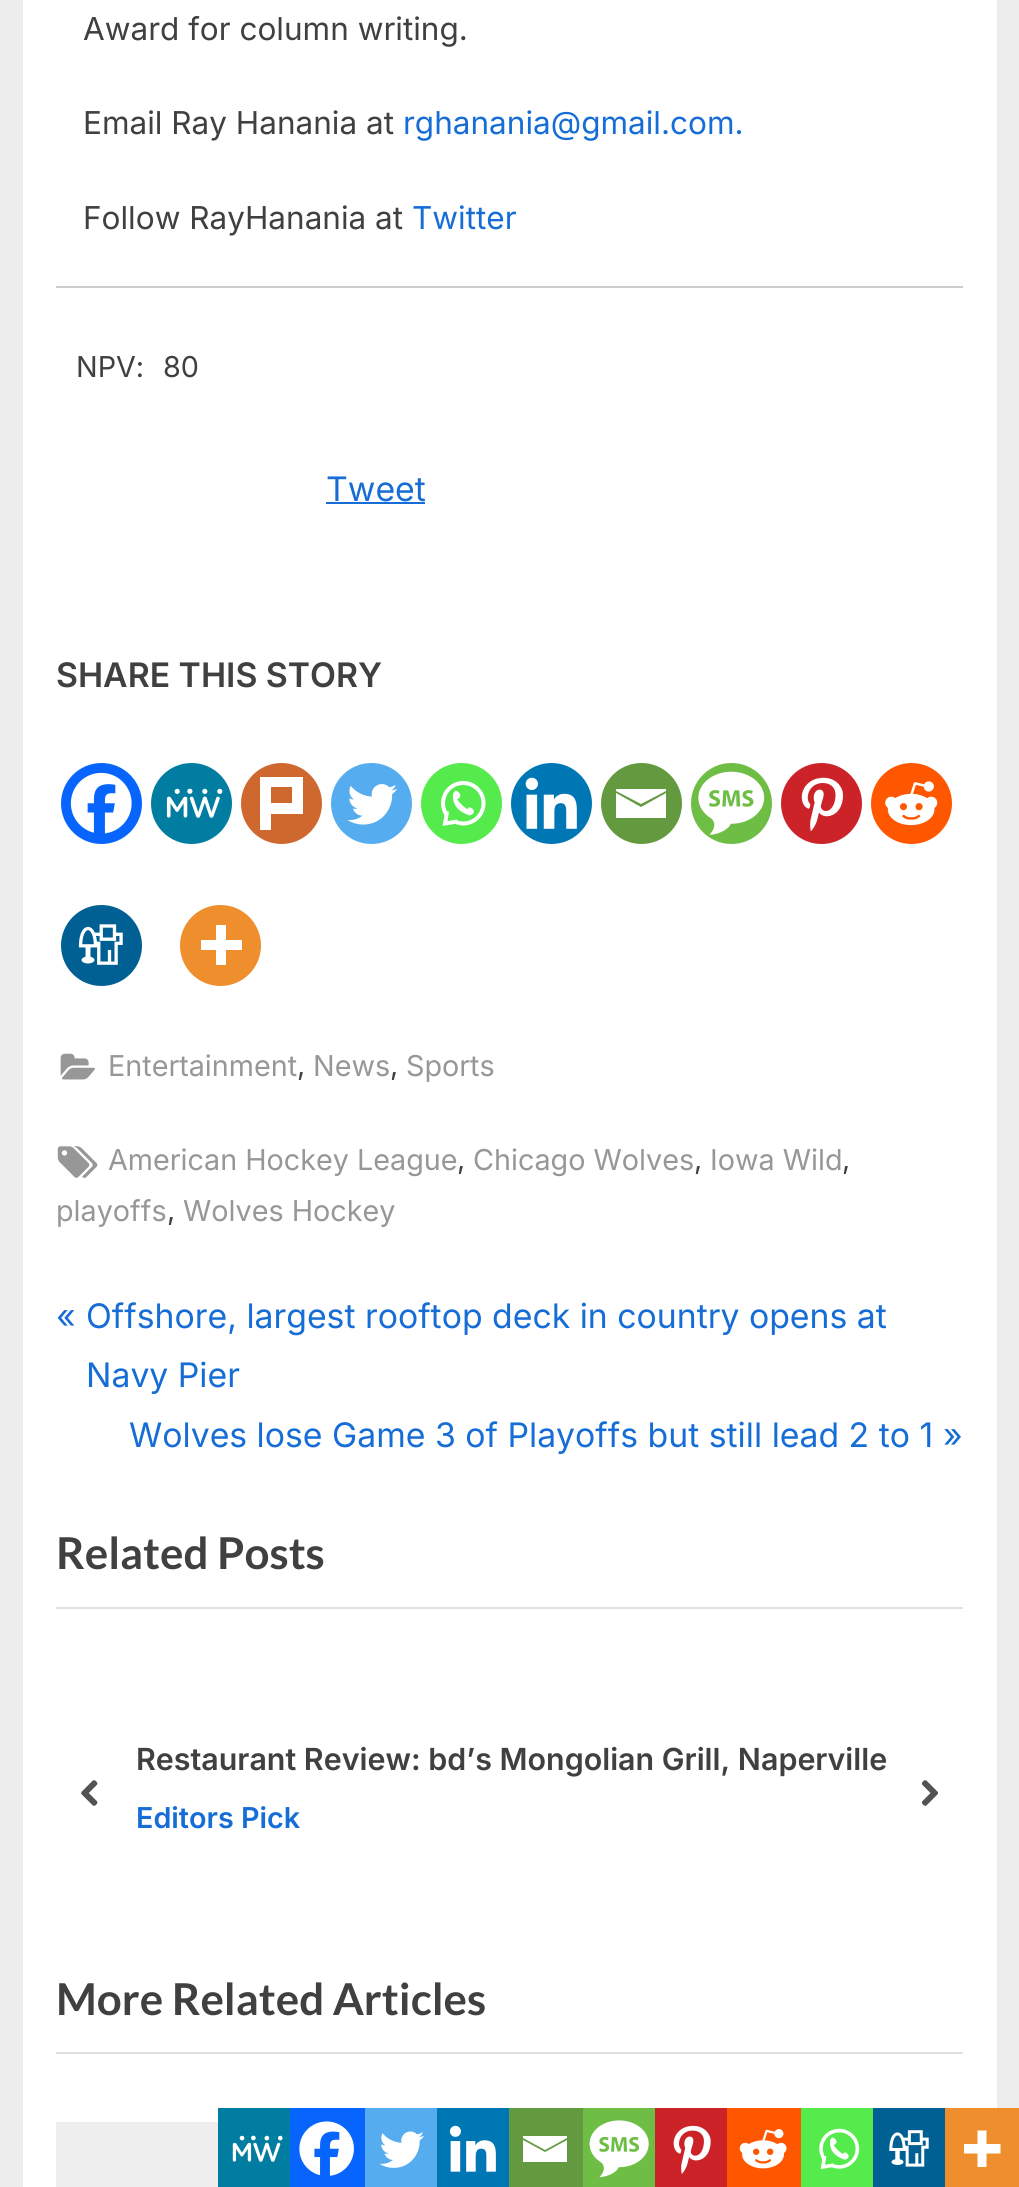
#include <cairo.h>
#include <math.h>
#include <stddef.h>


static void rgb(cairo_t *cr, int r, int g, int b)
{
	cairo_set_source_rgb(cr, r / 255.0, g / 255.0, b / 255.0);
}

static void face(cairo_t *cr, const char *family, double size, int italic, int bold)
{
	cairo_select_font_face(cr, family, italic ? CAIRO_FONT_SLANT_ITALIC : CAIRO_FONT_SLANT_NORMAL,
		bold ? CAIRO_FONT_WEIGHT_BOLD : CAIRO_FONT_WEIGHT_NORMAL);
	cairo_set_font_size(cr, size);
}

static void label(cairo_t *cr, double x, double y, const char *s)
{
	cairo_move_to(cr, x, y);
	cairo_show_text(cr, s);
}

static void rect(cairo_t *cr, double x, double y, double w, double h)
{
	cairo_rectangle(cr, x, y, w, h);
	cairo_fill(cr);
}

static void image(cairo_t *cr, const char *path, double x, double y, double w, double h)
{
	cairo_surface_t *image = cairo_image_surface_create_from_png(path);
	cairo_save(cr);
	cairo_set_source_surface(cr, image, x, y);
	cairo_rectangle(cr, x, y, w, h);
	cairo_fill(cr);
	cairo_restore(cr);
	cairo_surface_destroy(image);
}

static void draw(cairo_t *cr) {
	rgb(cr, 237, 237, 237);
	cairo_paint(cr);
	rgb(cr, 255, 255, 255);
	rect(cr, 23, 0, 974, 2187);
	rgb(cr, 204, 204, 204);
	rect(cr, 56, 286, 907, 2);
	face(cr, "Inter", 31.5, 0, 0);
	rgb(cr, 64, 64, 64);
	label(cr, 83, 40, "Award for column writing.");
	label(cr, 83, 134, "Email Ray Hanania at");
	rgb(cr, 22, 109, 214);
	label(cr, 403, 134, "rghanania@gmail.com.");
	rgb(cr, 64, 64, 64);
	label(cr, 83, 229, "Follow RayHanania at");
	rgb(cr, 22, 109, 214);
	label(cr, 412, 229, "Twitter");
	face(cr, "Inter", 28.75, 0, 0);
	rgb(cr, 64, 64, 64);
	label(cr, 76, 377, "NPV:");
	label(cr, 163, 377, "80");
	face(cr, "Inter", 33.75, 0, 0);
	rgb(cr, 22, 109, 214);
	label(cr, 326, 501, "Tweet");
	rect(cr, 326, 502, 99, 2);
	face(cr, "Inter SemiBold", 33.75, 0, 0);
	rgb(cr, 64, 64, 64);
	label(cr, 56, 687, "SHARE THIS STORY");
	rgb(cr, 7, 101, 254);
	cairo_new_path(cr);
	cairo_arc(cr, 101.5, 803.5, 40.5, 0, 2 * M_PI);
	cairo_fill(cr);
	image(cr, "image0.png", 70, 772, 62, 62);
	rgb(cr, 0, 125, 161);
	cairo_arc(cr, 191.5, 803.5, 40.5, 0, 2 * M_PI);
	cairo_fill(cr);
	image(cr, "image1.png", 166, 788, 57, 30);
	rgb(cr, 207, 104, 47);
	cairo_arc(cr, 281.5, 803.5, 40.5, 0, 2 * M_PI);
	cairo_fill(cr);
	rgb(cr, 255, 255, 255);
	cairo_new_path(cr);
	cairo_move_to(cr, 292, 803);
	cairo_line_to(cr, 271, 803);
	cairo_line_to(cr, 271, 787);
	cairo_line_to(cr, 292, 787);
	cairo_close_path(cr);
	cairo_move_to(cr, 303, 814);
	cairo_line_to(cr, 303, 777);
	cairo_line_to(cr, 260, 777);
	cairo_line_to(cr, 260, 830);
	cairo_line_to(cr, 271, 830);
	cairo_line_to(cr, 271, 814);
	cairo_close_path(cr);
	cairo_fill(cr);
	rgb(cr, 85, 172, 238);
	cairo_arc(cr, 371.5, 803.5, 40.5, 0, 2 * M_PI);
	cairo_fill(cr);
	image(cr, "image2.png", 347, 784, 50, 41);
	rgb(cr, 85, 235, 76);
	cairo_arc(cr, 461.5, 803.5, 40.5, 0, 2 * M_PI);
	cairo_fill(cr);
	image(cr, "image3.png", 441, 781, 45, 45);
	rgb(cr, 0, 119, 181);
	cairo_arc(cr, 551.5, 803.5, 40.5, 0, 2 * M_PI);
	cairo_fill(cr);
	image(cr, "image4.png", 525, 777, 52, 52);
	rgb(cr, 100, 154, 63);
	cairo_arc(cr, 641.5, 803.5, 40.5, 0, 2 * M_PI);
	cairo_fill(cr);
	rgb(cr, 255, 255, 255);
	cairo_new_path(cr);
	cairo_move_to(cr, 614, 789);
	cairo_line_to(cr, 666, 789);
	cairo_line_to(cr, 666, 791);
	cairo_line_to(cr, 641, 804);
	cairo_line_to(cr, 616, 791);
	cairo_line_to(cr, 616, 789);
	cairo_move_to(cr, 616, 793);
	cairo_line_to(cr, 641, 807);
	cairo_line_to(cr, 666, 793);
	cairo_line_to(cr, 666, 818);
	cairo_line_to(cr, 616, 818);
	cairo_line_to(cr, 616, 793);
	cairo_fill(cr);
	rgb(cr, 110, 190, 69);
	cairo_arc(cr, 731.5, 803.5, 40.5, 0, 2 * M_PI);
	cairo_fill(cr);
	image(cr, "image5.png", 698, 771, 67, 64);
	rgb(cr, 204, 35, 41);
	cairo_arc(cr, 821.5, 803.5, 40.5, 0, 2 * M_PI);
	cairo_fill(cr);
	image(cr, "image6.png", 801, 777, 42, 54);
	rgb(cr, 255, 87, 0);
	cairo_arc(cr, 911.5, 803.5, 40.5, 0, 2 * M_PI);
	cairo_fill(cr);
	image(cr, "image7.png", 885, 781, 53, 45);
	rgb(cr, 0, 96, 148);
	cairo_arc(cr, 101.5, 945.5, 40.5, 0, 2 * M_PI);
	cairo_fill(cr);
	image(cr, "image8.png", 78, 924, 45, 41);
	rgb(cr, 238, 142, 45);
	cairo_arc(cr, 220.5, 945.5, 40.5, 0, 2 * M_PI);
	cairo_fill(cr);
	rgb(cr, 255, 255, 255);
	cairo_set_fill_rule(cr, CAIRO_FILL_RULE_EVEN_ODD);
	cairo_new_path(cr);
	cairo_move_to(cr, 226, 940);
	cairo_line_to(cr, 226, 925);
	cairo_line_to(cr, 216, 925);
	cairo_line_to(cr, 216, 940);
	cairo_line_to(cr, 201, 940);
	cairo_line_to(cr, 201, 950);
	cairo_line_to(cr, 216, 950);
	cairo_line_to(cr, 216, 965);
	cairo_line_to(cr, 226, 965);
	cairo_line_to(cr, 226, 950);
	cairo_line_to(cr, 242, 950);
	cairo_line_to(cr, 242, 940);
	cairo_close_path(cr);
	cairo_fill(cr);
	rgb(cr, 0, 125, 161);
	rect(cr, 218, 2108, 72, 79);
	image(cr, "image9.png", 232, 2135, 51, 27);
	rgb(cr, 7, 101, 254);
	rect(cr, 290, 2108, 75, 79);
	image(cr, "image10.png", 299, 2121, 55, 55);
	rgb(cr, 85, 172, 238);
	rect(cr, 365, 2108, 72, 79);
	image(cr, "image11.png", 379, 2131, 45, 37);
	rgb(cr, 0, 119, 181);
	rect(cr, 437, 2108, 72, 79);
	image(cr, "image12.png", 449, 2125, 47, 47);
	rgb(cr, 100, 154, 63);
	rect(cr, 509, 2108, 74, 79);
	rgb(cr, 255, 255, 255);
	cairo_set_fill_rule(cr, CAIRO_FILL_RULE_WINDING);
	cairo_new_path(cr);
	cairo_move_to(cr, 521, 2136);
	cairo_line_to(cr, 567, 2136);
	cairo_line_to(cr, 567, 2138);
	cairo_line_to(cr, 545, 2150);
	cairo_line_to(cr, 523, 2138);
	cairo_line_to(cr, 523, 2136);
	cairo_move_to(cr, 523, 2140);
	cairo_line_to(cr, 545, 2152);
	cairo_line_to(cr, 567, 2140);
	cairo_line_to(cr, 567, 2162);
	cairo_line_to(cr, 523, 2162);
	cairo_line_to(cr, 523, 2140);
	cairo_fill(cr);
	rgb(cr, 110, 190, 69);
	rect(cr, 583, 2108, 72, 79);
	image(cr, "image13.png", 589, 2120, 60, 58);
	rgb(cr, 204, 35, 41);
	rect(cr, 655, 2108, 72, 79);
	image(cr, "image14.png", 673, 2125, 38, 49);
	rgb(cr, 255, 87, 0);
	rect(cr, 727, 2108, 74, 79);
	image(cr, "image15.png", 739, 2129, 48, 40);
	rgb(cr, 85, 235, 76);
	rect(cr, 801, 2108, 72, 79);
	image(cr, "image16.png", 819, 2128, 41, 42);
	rgb(cr, 0, 96, 148);
	rect(cr, 873, 2108, 72, 79);
	image(cr, "image17.png", 889, 2130, 40, 37);
	rgb(cr, 238, 142, 45);
	rect(cr, 945, 2108, 74, 79);
	rgb(cr, 255, 255, 255);
	cairo_set_fill_rule(cr, CAIRO_FILL_RULE_EVEN_ODD);
	cairo_new_path(cr);
	cairo_move_to(cr, 986.5, 2144);
	cairo_line_to(cr, 986.5, 2130.5);
	cairo_line_to(cr, 977.5, 2130.5);
	cairo_line_to(cr, 977.5, 2144);
	cairo_line_to(cr, 964, 2144);
	cairo_line_to(cr, 964, 2153.5);
	cairo_line_to(cr, 977.5, 2153.5);
	cairo_line_to(cr, 977.5, 2167);
	cairo_line_to(cr, 986.5, 2167);
	cairo_line_to(cr, 986.5, 2153.5);
	cairo_line_to(cr, 1000.5, 2153.5);
	cairo_line_to(cr, 1000.5, 2144);
	cairo_close_path(cr);
	cairo_fill(cr);
	image(cr, "image18.png", 60, 1053, 35, 27);
	face(cr, "Inter", 28.75, 0, 0);
	rgb(cr, 151, 151, 151);
	label(cr, 108, 1076, "Entertainment");
	rgb(cr, 64, 64, 64);
	label(cr, 297, 1075, ",");
	rgb(cr, 151, 151, 151);
	label(cr, 313, 1076, "News");
	rgb(cr, 64, 64, 64);
	label(cr, 390, 1075, ",");
	rgb(cr, 151, 151, 151);
	label(cr, 406, 1076, "Sports");
	image(cr, "image19.png", 57, 1146, 41, 32);
	label(cr, 108, 1170, "American Hockey League");
	rgb(cr, 64, 64, 64);
	label(cr, 457, 1169, ",");
	rgb(cr, 151, 151, 151);
	label(cr, 473, 1170, "Chicago Wolves");
	rgb(cr, 64, 64, 64);
	label(cr, 694, 1169, ",");
	rgb(cr, 151, 151, 151);
	label(cr, 710, 1170, "Iowa Wild");
	rgb(cr, 64, 64, 64);
	label(cr, 842, 1169, ",");
	rgb(cr, 151, 151, 151);
	label(cr, 56, 1221, "playoffs");
	rgb(cr, 64, 64, 64);
	label(cr, 167, 1220, ",");
	rgb(cr, 151, 151, 151);
	label(cr, 183, 1221, "Wolves Hockey");
	face(cr, "Inter", 33.75, 0, 0);
	rgb(cr, 22, 109, 214);
	label(cr, 56, 1328, "«");
	label(cr, 86, 1328, "Offshore, largest rooftop deck in country opens at");
	label(cr, 86, 1387, "Navy Pier");
	label(cr, 129, 1447, "Wolves lose Game 3 of Playoffs but still lead 2 to 1");
	label(cr, 943, 1447, "»");
	rgb(cr, 225, 225, 225);
	rect(cr, 56, 1607, 907, 2);
	face(cr, "Lato", 43.9, 0, 1);
	rgb(cr, 64, 64, 64);
	label(cr, 56, 1569, "Related Posts");
	face(cr, "Inter SemiBold", 30.4, 0, 0);
	label(cr, 136, 1770, "Restaurant Review: bd’s Mongolian Grill, Naperville");
	face(cr, "Inter SemiBold", 28.75, 0, 0);
	rgb(cr, 22, 109, 214);
	label(cr, 136, 1828, "Editors Pick");
	image(cr, "image20.png", 81, 1780, 17, 26);
	image(cr, "image21.png", 921, 1780, 17, 26);
	rgb(cr, 225, 225, 225);
	rect(cr, 56, 2052, 907, 2);
	face(cr, "Lato", 43.9, 0, 1);
	rgb(cr, 64, 64, 64);
	label(cr, 56, 2015, "More Related Articles");
	rgb(cr, 238, 238, 238);
	rect(cr, 56, 2122, 162, 65);
}

int main(void) {
	cairo_surface_t *surface = cairo_image_surface_create(CAIRO_FORMAT_RGB24, 1019, 2187);
	cairo_t *cr = cairo_create(surface);
	cairo_font_options_t *options = cairo_font_options_create();
	cairo_font_options_set_hint_metrics(options, CAIRO_HINT_METRICS_OFF);
	cairo_font_options_set_hint_style(options, CAIRO_HINT_STYLE_NONE);
	cairo_set_font_options(cr, options);
	cairo_set_miter_limit(cr, 4);
	draw(cr);
	cairo_surface_write_to_png(surface, "render.png");
	cairo_font_options_destroy(options);
	cairo_destroy(cr);
	cairo_surface_destroy(surface);
	return 0;
}
